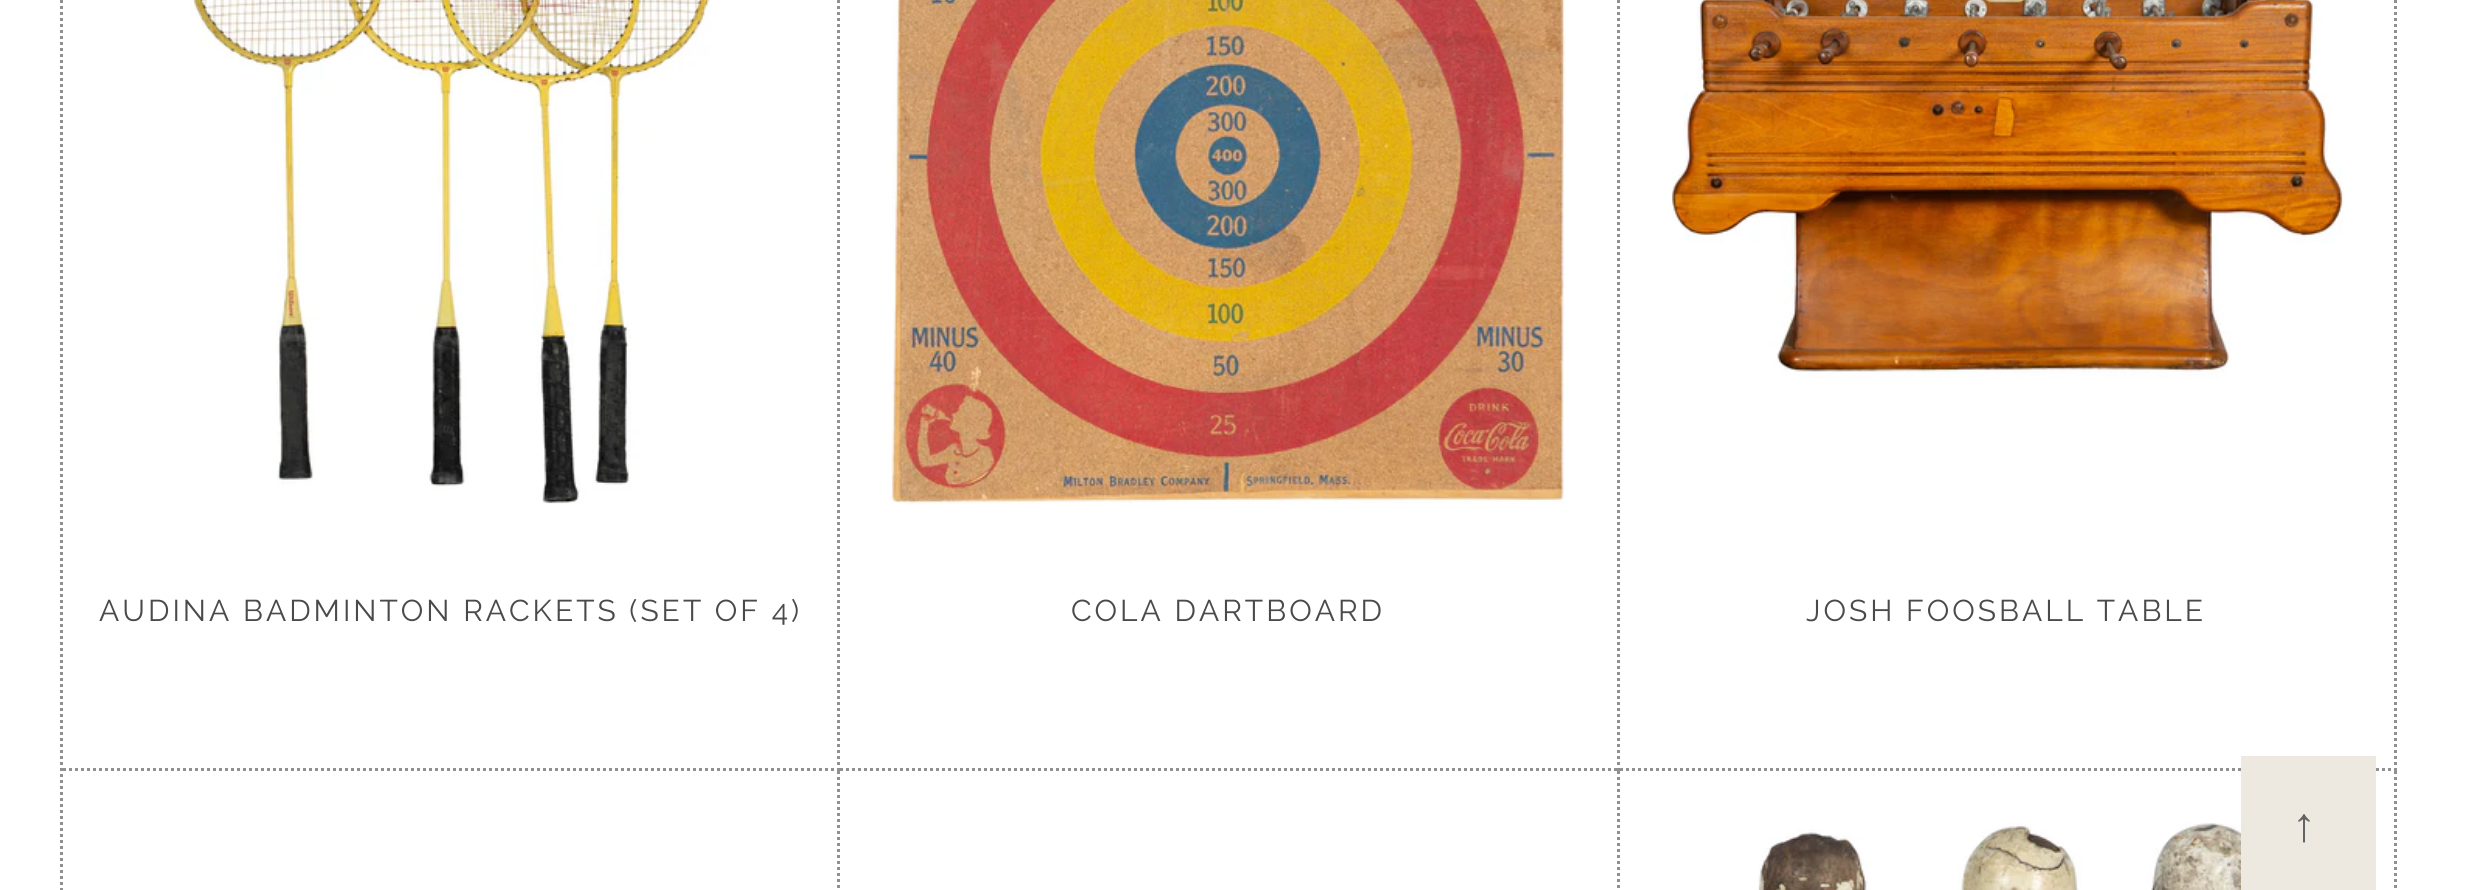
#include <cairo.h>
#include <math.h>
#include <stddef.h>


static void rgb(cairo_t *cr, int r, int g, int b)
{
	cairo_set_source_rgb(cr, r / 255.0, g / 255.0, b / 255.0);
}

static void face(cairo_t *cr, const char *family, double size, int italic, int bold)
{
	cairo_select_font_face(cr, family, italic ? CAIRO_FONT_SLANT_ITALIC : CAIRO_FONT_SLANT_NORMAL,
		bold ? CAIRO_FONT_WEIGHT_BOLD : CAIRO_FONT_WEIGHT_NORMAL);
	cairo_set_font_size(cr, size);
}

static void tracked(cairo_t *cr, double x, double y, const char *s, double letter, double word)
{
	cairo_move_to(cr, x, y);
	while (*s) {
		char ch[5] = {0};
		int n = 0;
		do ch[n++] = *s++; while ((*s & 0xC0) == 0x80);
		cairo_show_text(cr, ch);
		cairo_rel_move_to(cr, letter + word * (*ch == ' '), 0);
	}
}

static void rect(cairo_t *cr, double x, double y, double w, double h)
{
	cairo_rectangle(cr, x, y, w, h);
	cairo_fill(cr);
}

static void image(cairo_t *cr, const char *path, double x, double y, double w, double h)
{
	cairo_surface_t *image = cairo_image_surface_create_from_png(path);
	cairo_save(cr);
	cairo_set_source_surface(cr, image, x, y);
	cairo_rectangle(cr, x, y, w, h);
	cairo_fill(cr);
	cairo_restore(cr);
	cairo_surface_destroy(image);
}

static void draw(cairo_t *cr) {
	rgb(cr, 255, 255, 255);
	cairo_paint(cr);
	cairo_new_path(cr);
	cairo_move_to(cr, 61.5, -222);
	cairo_line_to(cr, 61.5, 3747);
	rgb(cr, 144, 144, 146);
	cairo_set_line_width(cr, 3);
	cairo_set_dash(cr, (double[]){3, 3}, 2, 0);
	cairo_stroke(cr);
	cairo_new_path(cr);
	cairo_move_to(cr, 838.5, -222);
	cairo_line_to(cr, 838.5, 771);
	cairo_stroke(cr);
	cairo_new_path(cr);
	cairo_move_to(cr, 63, 769.5);
	cairo_line_to(cr, 840, 769.5);
	cairo_stroke(cr);
	image(cr, "image0.png", 190, 0, 521, 504);
	face(cr, "Raleway", 30, 0, 0);
	rgb(cr, 74, 74, 74);
	tracked(cr, 99, 621, "AUDINA BADMINTON RACKETS (SET OF 4)", 3, 0);
	cairo_new_path(cr);
	cairo_move_to(cr, 1618.5, -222);
	cairo_line_to(cr, 1618.5, 771);
	rgb(cr, 144, 144, 146);
	cairo_stroke(cr);
	cairo_new_path(cr);
	cairo_move_to(cr, 840, 769.5);
	cairo_line_to(cr, 1620, 769.5);
	cairo_stroke(cr);
	image(cr, "image1.png", 891, 0, 675, 504);
	rgb(cr, 74, 74, 74);
	tracked(cr, 1071, 621, "COLA DARTBOARD", 3, 0);
	cairo_new_path(cr);
	cairo_move_to(cr, 2395.5, -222);
	cairo_line_to(cr, 2395.5, 771);
	rgb(cr, 144, 144, 146);
	cairo_stroke(cr);
	cairo_new_path(cr);
	cairo_move_to(cr, 1620, 769.5);
	cairo_line_to(cr, 2397, 769.5);
	cairo_stroke(cr);
	image(cr, "image2.png", 1671, 0, 673, 379);
	rgb(cr, 74, 74, 74);
	tracked(cr, 1806, 621, "JOSH FOOSBALL TABLE", 3, 0);
	cairo_new_path(cr);
	cairo_move_to(cr, 838.5, 771);
	cairo_line_to(cr, 838.5, 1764);
	rgb(cr, 144, 144, 146);
	cairo_stroke(cr);
	cairo_new_path(cr);
	cairo_move_to(cr, 1618.5, 771);
	cairo_line_to(cr, 1618.5, 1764);
	cairo_stroke(cr);
	cairo_new_path(cr);
	cairo_move_to(cr, 2395.5, 771);
	cairo_line_to(cr, 2395.5, 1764);
	cairo_stroke(cr);
	image(cr, "image3.png", 1758, 823, 483, 67);
	rgb(cr, 237, 233, 225);
	rect(cr, 2241, 756, 135, 134);
	face(cr, "Liberation Serif", 48, 0, 0);
	rgb(cr, 98, 98, 98);
	tracked(cr, 2292, 841, "↑", 3, 0);
}

int main(void) {
	cairo_surface_t *surface = cairo_image_surface_create(CAIRO_FORMAT_RGB24, 2466, 890);
	cairo_t *cr = cairo_create(surface);
	cairo_font_options_t *options = cairo_font_options_create();
	cairo_font_options_set_hint_metrics(options, CAIRO_HINT_METRICS_OFF);
	cairo_font_options_set_hint_style(options, CAIRO_HINT_STYLE_NONE);
	cairo_set_font_options(cr, options);
	cairo_set_miter_limit(cr, 4);
	draw(cr);
	cairo_surface_write_to_png(surface, "render.png");
	cairo_font_options_destroy(options);
	cairo_destroy(cr);
	cairo_surface_destroy(surface);
	return 0;
}
